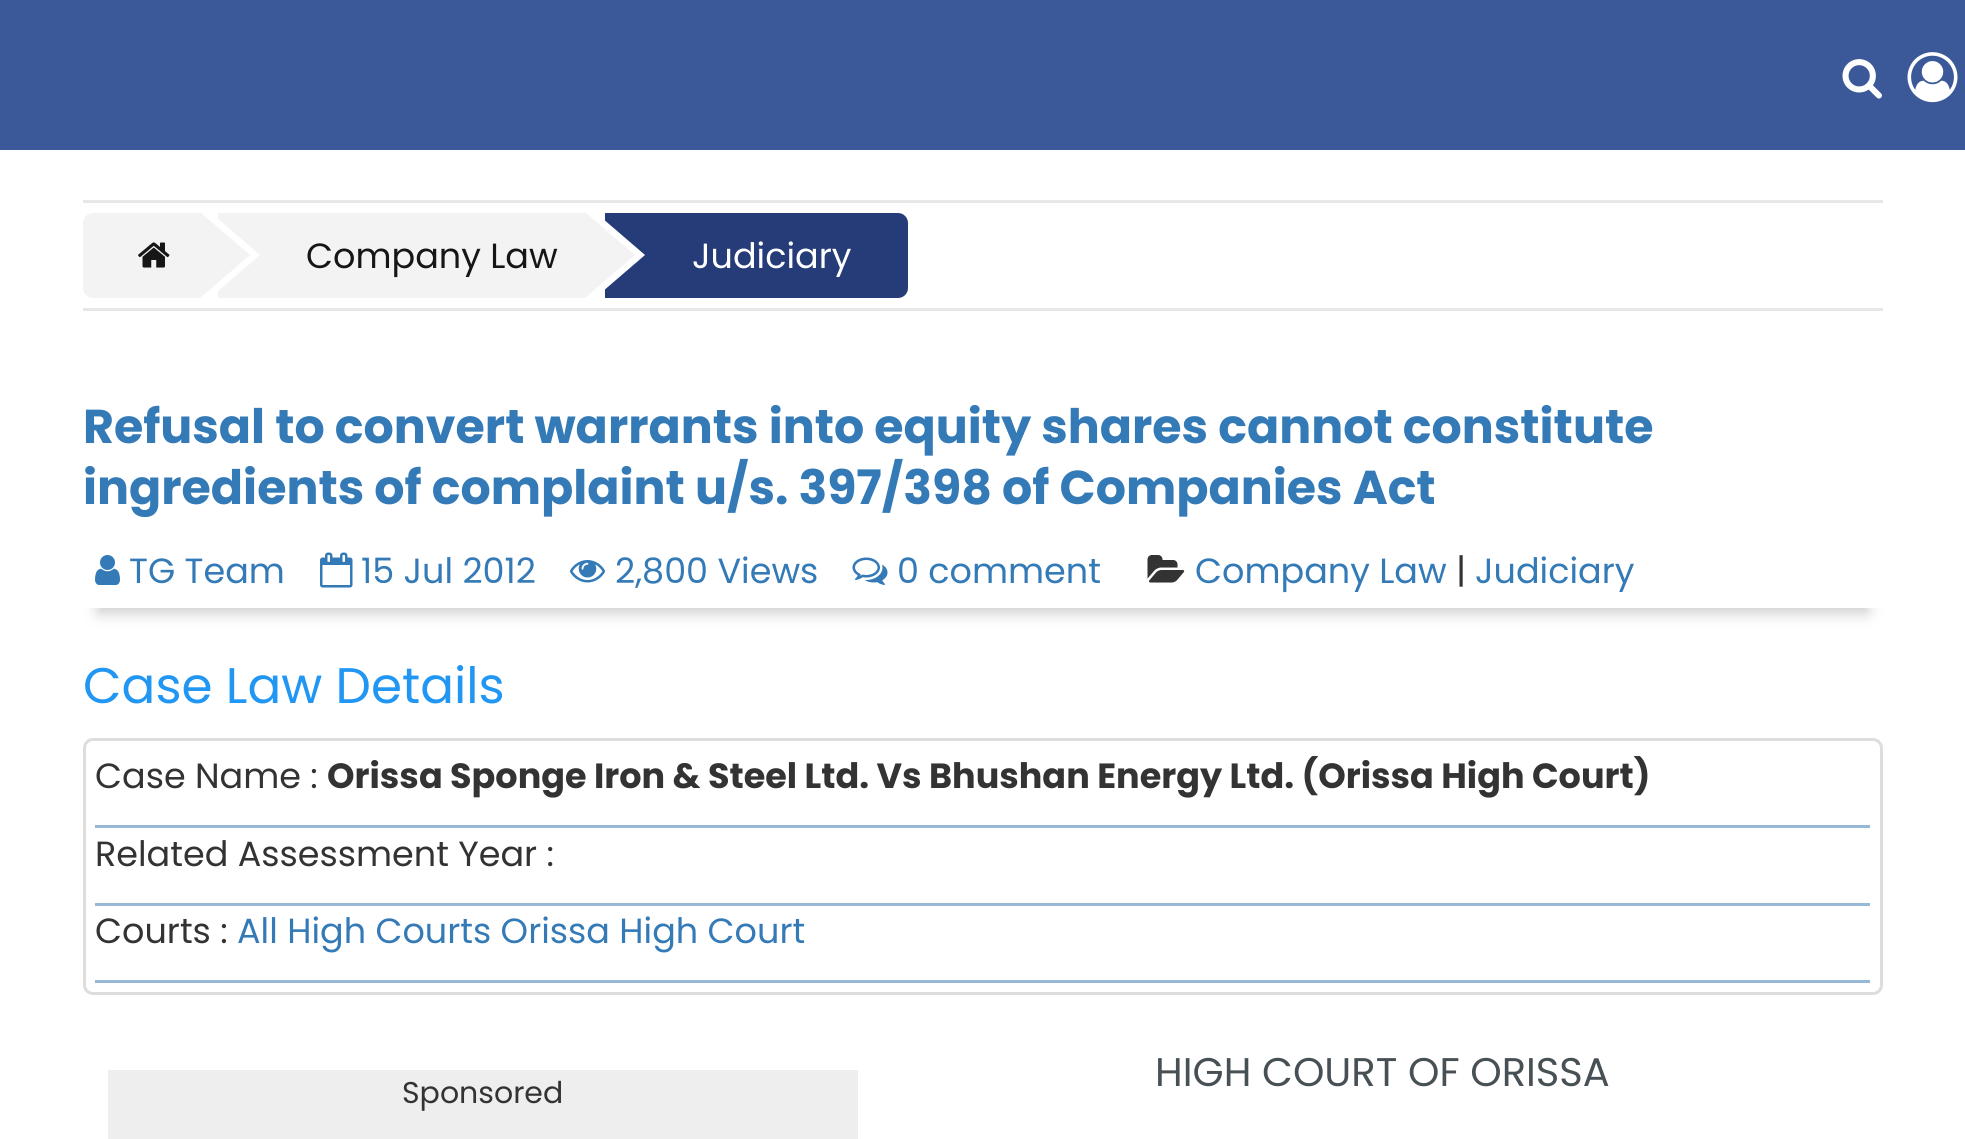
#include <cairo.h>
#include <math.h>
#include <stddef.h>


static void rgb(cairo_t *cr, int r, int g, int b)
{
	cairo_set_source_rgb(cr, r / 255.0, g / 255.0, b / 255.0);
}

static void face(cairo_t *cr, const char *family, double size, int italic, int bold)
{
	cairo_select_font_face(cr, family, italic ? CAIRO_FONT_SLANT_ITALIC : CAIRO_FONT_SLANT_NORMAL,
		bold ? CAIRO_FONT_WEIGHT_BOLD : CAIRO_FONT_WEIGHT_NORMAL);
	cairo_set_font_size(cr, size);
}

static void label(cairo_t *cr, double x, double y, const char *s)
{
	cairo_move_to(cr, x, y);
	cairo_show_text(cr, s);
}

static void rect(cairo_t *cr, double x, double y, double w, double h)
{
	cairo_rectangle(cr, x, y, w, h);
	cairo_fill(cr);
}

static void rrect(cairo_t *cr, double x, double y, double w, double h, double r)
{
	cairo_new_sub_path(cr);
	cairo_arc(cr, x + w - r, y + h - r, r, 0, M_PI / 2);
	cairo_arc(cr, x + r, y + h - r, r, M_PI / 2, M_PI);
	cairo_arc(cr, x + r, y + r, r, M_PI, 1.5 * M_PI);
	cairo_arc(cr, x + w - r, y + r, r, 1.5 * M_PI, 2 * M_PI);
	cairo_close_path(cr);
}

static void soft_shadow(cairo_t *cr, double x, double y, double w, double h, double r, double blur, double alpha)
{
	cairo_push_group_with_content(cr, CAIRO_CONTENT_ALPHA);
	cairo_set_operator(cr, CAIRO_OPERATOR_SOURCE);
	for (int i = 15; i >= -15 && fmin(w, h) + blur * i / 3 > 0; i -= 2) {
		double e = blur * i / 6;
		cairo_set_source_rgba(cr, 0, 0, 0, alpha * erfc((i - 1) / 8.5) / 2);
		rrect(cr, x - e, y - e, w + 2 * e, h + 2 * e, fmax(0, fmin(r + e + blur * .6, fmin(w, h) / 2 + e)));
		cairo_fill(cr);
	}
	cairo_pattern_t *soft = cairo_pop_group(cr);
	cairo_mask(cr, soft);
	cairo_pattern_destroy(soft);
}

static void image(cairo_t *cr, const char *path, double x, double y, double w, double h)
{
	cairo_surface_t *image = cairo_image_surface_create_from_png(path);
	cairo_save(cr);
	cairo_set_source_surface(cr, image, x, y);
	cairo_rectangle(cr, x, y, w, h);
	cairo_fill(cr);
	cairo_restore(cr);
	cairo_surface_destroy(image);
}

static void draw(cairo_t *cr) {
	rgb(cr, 255, 255, 255);
	cairo_paint(cr);
	rgb(cr, 59, 89, 152);
	rect(cr, 0, 0, 1965, 150);
	image(cr, "image0.png", 1842, 59, 40, 40);
	image(cr, "image1.png", 1907, 52, 51, 51);
	rgb(cr, 231, 231, 231);
	rect(cr, 83, 200, 1800, 3);
	rect(cr, 83, 308, 1800, 3);
	rgb(cr, 243, 243, 243);
	cairo_new_path(cr);
	cairo_move_to(cr, 93, 213);
	cairo_line_to(cr, 200, 213);
	cairo_line_to(cr, 200, 298);
	cairo_line_to(cr, 93, 298);
	cairo_curve_to(cr, 87.5, 298, 83, 293.5, 83, 288);
	cairo_line_to(cr, 83, 223);
	cairo_curve_to(cr, 83, 217.5, 87.5, 213, 93, 213);
	cairo_close_path(cr);
	cairo_fill(cr);
	image(cr, "image2.png", 138, 242, 32, 26);
	rect(cr, 218, 213, 367, 85);
	rgb(cr, 255, 255, 255);
	cairo_new_path(cr);
	cairo_move_to(cr, 210, 298);
	cairo_line_to(cr, 210, 212);
	cairo_line_to(cr, 260, 255);
	cairo_close_path(cr);
	cairo_fill(cr);
	rgb(cr, 243, 243, 243);
	cairo_new_path(cr);
	cairo_move_to(cr, 200, 298);
	cairo_line_to(cr, 200, 212);
	cairo_line_to(cr, 250, 255);
	cairo_close_path(cr);
	cairo_fill(cr);
	face(cr, "Poppins", 35, 0, 0);
	rgb(cr, 23, 22, 23);
	label(cr, 306, 268, "Company Law");
	rgb(cr, 38, 60, 120);
	cairo_new_path(cr);
	cairo_move_to(cr, 605, 213);
	cairo_line_to(cr, 898, 213);
	cairo_curve_to(cr, 903.5, 213, 908, 217.5, 908, 223);
	cairo_line_to(cr, 908, 288);
	cairo_curve_to(cr, 908, 293.5, 903.5, 298, 898, 298);
	cairo_line_to(cr, 605, 298);
	cairo_close_path(cr);
	cairo_fill(cr);
	rgb(cr, 255, 255, 255);
	cairo_new_path(cr);
	cairo_move_to(cr, 595, 298);
	cairo_line_to(cr, 595, 212);
	cairo_line_to(cr, 645, 255);
	cairo_close_path(cr);
	cairo_fill(cr);
	rgb(cr, 243, 243, 243);
	cairo_new_path(cr);
	cairo_move_to(cr, 585, 298);
	cairo_line_to(cr, 585, 212);
	cairo_line_to(cr, 635, 255);
	cairo_close_path(cr);
	cairo_fill(cr);
	rgb(cr, 255, 255, 255);
	label(cr, 692, 268, "Judiciary");
	cairo_save(cr);
	cairo_set_fill_rule(cr, CAIRO_FILL_RULE_EVEN_ODD);
	cairo_new_path(cr);
	cairo_move_to(cr, 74, 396);
	cairo_line_to(cr, 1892, 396);
	cairo_line_to(cr, 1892, 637);
	cairo_line_to(cr, 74, 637);
	cairo_close_path(cr);
	cairo_move_to(cr, 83, 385);
	cairo_line_to(cr, 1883, 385);
	cairo_line_to(cr, 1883, 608);
	cairo_line_to(cr, 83, 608);
	cairo_close_path(cr);
	cairo_clip(cr);
	rgb(cr, 0, 0, 0);
	soft_shadow(cr, 98, 420, 1770, 193, 0, 7.5, 0.2);
	cairo_restore(cr);
	face(cr, "Poppins", 47.5, 0, 1);
	rgb(cr, 51, 122, 183);
	label(cr, 83, 443, "Refusal to convert warrants into equity shares cannot constitute");
	label(cr, 83, 504, "ingredients of complaint u/s. 397/398 of Companies Act");
	image(cr, "image3.png", 95, 555, 25, 30);
	face(cr, "Poppins", 35, 0, 0);
	label(cr, 129, 583, "TG Team");
	image(cr, "image4.png", 320, 552, 33, 36);
	label(cr, 361, 583, "15 Jul 2012");
	image(cr, "image5.png", 570, 560, 35, 23);
	label(cr, 615, 583, "2,800 Views");
	image(cr, "image6.png", 852, 557, 36, 28);
	label(cr, 897, 583, "0 comment");
	image(cr, "image7.png", 1147, 555, 38, 28);
	label(cr, 1195, 583, "Company Law");
	rgb(cr, 51, 51, 51);
	label(cr, 1456, 583, "|");
	rgb(cr, 51, 122, 183);
	label(cr, 1475, 583, "Judiciary");
	face(cr, "Poppins", 50, 0, 0);
	rgb(cr, 33, 150, 243);
	label(cr, 83, 703, "Case Law Details");
	rrect(cr, 84.5, 739.5, 1797, 254, 8.5);
	rgb(cr, 221, 221, 221);
	cairo_set_line_width(cr, 3);
	cairo_stroke(cr);
	rgb(cr, 151, 185, 215);
	rect(cr, 95, 825, 1775, 3);
	face(cr, "Poppins", 35, 0, 0);
	rgb(cr, 51, 51, 51);
	label(cr, 95, 788, "Case Name :");
	face(cr, "Poppins", 35, 0, 1);
	label(cr, 327, 788, "Orissa Sponge Iron & Steel Ltd. Vs Bhushan Energy Ltd. (Orissa High Court)");
	rgb(cr, 151, 185, 215);
	rect(cr, 95, 903, 1775, 3);
	face(cr, "Poppins", 35, 0, 0);
	rgb(cr, 51, 51, 51);
	label(cr, 95, 866, "Related Assessment Year :");
	rgb(cr, 151, 185, 215);
	rect(cr, 95, 980, 1775, 3);
	rgb(cr, 51, 51, 51);
	label(cr, 95, 943, "Courts :");
	rgb(cr, 51, 122, 183);
	label(cr, 237, 943, "All High Courts Orissa High Court");
	face(cr, "Poppins", 40, 0, 0);
	rgb(cr, 71, 80, 85);
	label(cr, 1155, 1086, "HIGH COURT OF ORISSA");
	rgb(cr, 238, 238, 238);
	rect(cr, 108, 1070, 750, 69);
	face(cr, "Poppins", 30, 0, 0);
	rgb(cr, 51, 51, 51);
	label(cr, 402, 1103, "Sponsored");
}

int main(void) {
	cairo_surface_t *surface = cairo_image_surface_create(CAIRO_FORMAT_RGB24, 1965, 1139);
	cairo_t *cr = cairo_create(surface);
	cairo_font_options_t *options = cairo_font_options_create();
	cairo_font_options_set_hint_metrics(options, CAIRO_HINT_METRICS_OFF);
	cairo_font_options_set_hint_style(options, CAIRO_HINT_STYLE_NONE);
	cairo_set_font_options(cr, options);
	cairo_set_miter_limit(cr, 4);
	draw(cr);
	cairo_surface_write_to_png(surface, "render.png");
	cairo_font_options_destroy(options);
	cairo_destroy(cr);
	cairo_surface_destroy(surface);
	return 0;
}
